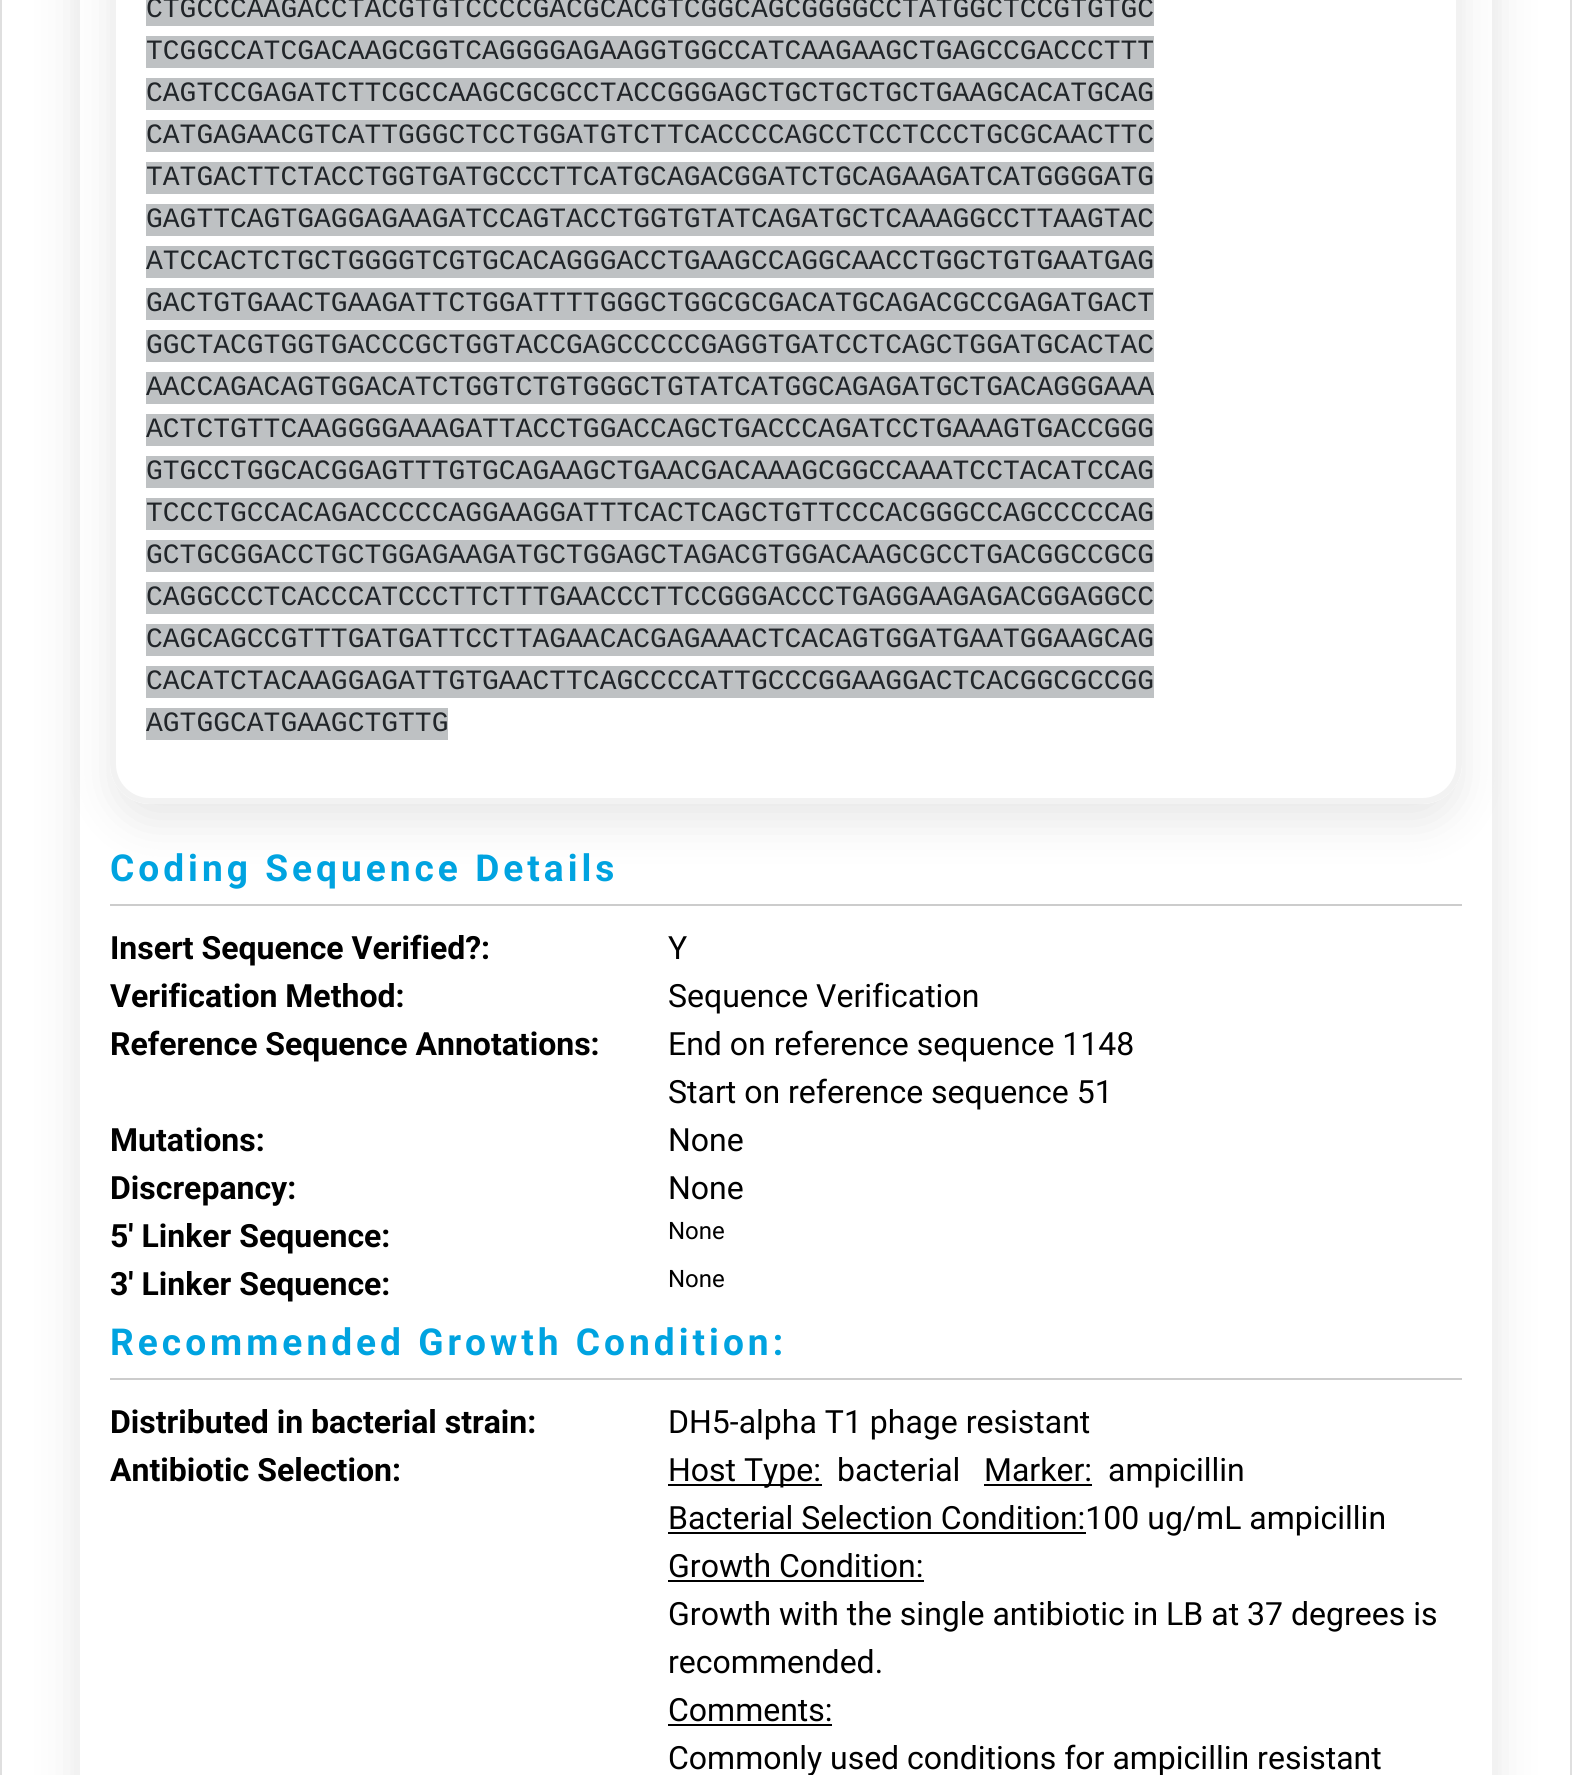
#include <cairo.h>
#include <math.h>
#include <stddef.h>


static void rgb(cairo_t *cr, int r, int g, int b)
{
	cairo_set_source_rgb(cr, r / 255.0, g / 255.0, b / 255.0);
}

static void face(cairo_t *cr, const char *family, double size, int italic, int bold)
{
	cairo_select_font_face(cr, family, italic ? CAIRO_FONT_SLANT_ITALIC : CAIRO_FONT_SLANT_NORMAL,
		bold ? CAIRO_FONT_WEIGHT_BOLD : CAIRO_FONT_WEIGHT_NORMAL);
	cairo_set_font_size(cr, size);
}

static void label(cairo_t *cr, double x, double y, const char *s)
{
	cairo_move_to(cr, x, y);
	cairo_show_text(cr, s);
}

static void tracked(cairo_t *cr, double x, double y, const char *s, double letter, double word)
{
	cairo_move_to(cr, x, y);
	while (*s) {
		char ch[5] = {0};
		int n = 0;
		do ch[n++] = *s++; while ((*s & 0xC0) == 0x80);
		cairo_show_text(cr, ch);
		cairo_rel_move_to(cr, letter + word * (*ch == ' '), 0);
	}
}

static void rect(cairo_t *cr, double x, double y, double w, double h)
{
	cairo_rectangle(cr, x, y, w, h);
	cairo_fill(cr);
}

static void rrect(cairo_t *cr, double x, double y, double w, double h, double r)
{
	cairo_new_sub_path(cr);
	cairo_arc(cr, x + w - r, y + h - r, r, 0, M_PI / 2);
	cairo_arc(cr, x + r, y + h - r, r, M_PI / 2, M_PI);
	cairo_arc(cr, x + r, y + r, r, M_PI, 1.5 * M_PI);
	cairo_arc(cr, x + w - r, y + r, r, 1.5 * M_PI, 2 * M_PI);
	cairo_close_path(cr);
}

static void soft_shadow(cairo_t *cr, double x, double y, double w, double h, double r, double blur, double alpha)
{
	cairo_push_group_with_content(cr, CAIRO_CONTENT_ALPHA);
	cairo_set_operator(cr, CAIRO_OPERATOR_SOURCE);
	for (int i = 15; i >= -15 && fmin(w, h) + blur * i / 3 > 0; i -= 2) {
		double e = blur * i / 6;
		cairo_set_source_rgba(cr, 0, 0, 0, alpha * erfc((i - 1) / 8.5) / 2);
		rrect(cr, x - e, y - e, w + 2 * e, h + 2 * e, fmax(0, fmin(r + e + blur * .6, fmin(w, h) / 2 + e)));
		cairo_fill(cr);
	}
	cairo_pattern_t *soft = cairo_pop_group(cr);
	cairo_mask(cr, soft);
	cairo_pattern_destroy(soft);
}

static void draw(cairo_t *cr) {
	rgb(cr, 255, 255, 255);
	cairo_paint(cr);
	cairo_rectangle(cr, 1, -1, 1570, 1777);
	rgb(cr, 223, 223, 223);
	cairo_stroke(cr);
	cairo_save(cr);
	cairo_set_fill_rule(cr, CAIRO_FILL_RULE_EVEN_ODD);
	cairo_new_path(cr);
	cairo_move_to(cr, 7, 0);
	cairo_line_to(cr, 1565, 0);
	cairo_line_to(cr, 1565, 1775);
	cairo_line_to(cr, 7, 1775);
	cairo_close_path(cr);
	cairo_move_to(cr, 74, -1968);
	cairo_line_to(cr, 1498, -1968);
	cairo_line_to(cr, 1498, 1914);
	cairo_curve_to(cr, 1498, 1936, 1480, 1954, 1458, 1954);
	cairo_line_to(cr, 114, 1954);
	cairo_curve_to(cr, 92, 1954, 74, 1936, 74, 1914);
	cairo_close_path(cr);
	cairo_clip(cr);
	rgb(cr, 0, 0, 0);
	soft_shadow(cr, 74, -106, 1424, 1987, 40, 22, 0.09);
	cairo_restore(cr);
	cairo_rectangle(cr, 77, -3, 1418, 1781);
	rgb(cr, 242, 242, 242);
	cairo_set_line_width(cr, 6);
	cairo_stroke(cr);
	cairo_save(cr);
	cairo_set_fill_rule(cr, CAIRO_FILL_RULE_EVEN_ODD);
	cairo_new_path(cr);
	cairo_move_to(cr, 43, 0);
	cairo_line_to(cr, 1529, 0);
	cairo_line_to(cr, 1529, 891);
	cairo_line_to(cr, 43, 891);
	cairo_close_path(cr);
	cairo_move_to(cr, 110, -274);
	cairo_line_to(cr, 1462, -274);
	cairo_line_to(cr, 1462, 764);
	cairo_curve_to(cr, 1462, 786, 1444, 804, 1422, 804);
	cairo_line_to(cr, 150, 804);
	cairo_curve_to(cr, 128, 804, 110, 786, 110, 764);
	cairo_close_path(cr);
	cairo_clip(cr);
	rgb(cr, 0, 0, 0);
	soft_shadow(cr, 110, -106, 1352, 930, 40, 22, 0.09);
	cairo_restore(cr);
	cairo_new_path(cr);
	cairo_move_to(cr, 113, -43);
	cairo_line_to(cr, 1459, -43);
	cairo_line_to(cr, 1459, 764);
	cairo_curve_to(cr, 1459, 784.5, 1442.5, 801, 1422, 801);
	cairo_line_to(cr, 150, 801);
	cairo_curve_to(cr, 129.5, 801, 113, 784.5, 113, 764);
	cairo_close_path(cr);
	cairo_stroke(cr);
	rgb(cr, 190, 193, 195);
	rect(cr, 146, 0, 1008, 26);
	face(cr, "Liberation Mono", 28, 0, 0);
	rgb(cr, 33, 37, 41);
	label(cr, 146, 17, "CTGCCCAAGACCTACGTGTCCCCGACGCACGTCGGCAGCGGGGCCTATGGCTCCGTGTGC");
	rgb(cr, 190, 193, 195);
	rect(cr, 146, 36, 1008, 32);
	rgb(cr, 33, 37, 41);
	label(cr, 146, 59, "TCGGCCATCGACAAGCGGTCAGGGGAGAAGGTGGCCATCAAGAAGCTGAGCCGACCCTTT");
	rgb(cr, 190, 193, 195);
	rect(cr, 146, 78, 1008, 32);
	rgb(cr, 33, 37, 41);
	label(cr, 146, 101, "CAGTCCGAGATCTTCGCCAAGCGCGCCTACCGGGAGCTGCTGCTGCTGAAGCACATGCAG");
	rgb(cr, 190, 193, 195);
	rect(cr, 146, 120, 1008, 32);
	rgb(cr, 33, 37, 41);
	label(cr, 146, 143, "CATGAGAACGTCATTGGGCTCCTGGATGTCTTCACCCCAGCCTCCTCCCTGCGCAACTTC");
	rgb(cr, 190, 193, 195);
	rect(cr, 146, 162, 1008, 32);
	rgb(cr, 33, 37, 41);
	label(cr, 146, 185, "TATGACTTCTACCTGGTGATGCCCTTCATGCAGACGGATCTGCAGAAGATCATGGGGATG");
	rgb(cr, 190, 193, 195);
	rect(cr, 146, 204, 1008, 32);
	rgb(cr, 33, 37, 41);
	label(cr, 146, 227, "GAGTTCAGTGAGGAGAAGATCCAGTACCTGGTGTATCAGATGCTCAAAGGCCTTAAGTAC");
	rgb(cr, 190, 193, 195);
	rect(cr, 146, 246, 1008, 32);
	rgb(cr, 33, 37, 41);
	label(cr, 146, 269, "ATCCACTCTGCTGGGGTCGTGCACAGGGACCTGAAGCCAGGCAACCTGGCTGTGAATGAG");
	rgb(cr, 190, 193, 195);
	rect(cr, 146, 288, 1008, 32);
	rgb(cr, 33, 37, 41);
	label(cr, 146, 311, "GACTGTGAACTGAAGATTCTGGATTTTGGGCTGGCGCGACATGCAGACGCCGAGATGACT");
	rgb(cr, 190, 193, 195);
	rect(cr, 146, 330, 1008, 32);
	rgb(cr, 33, 37, 41);
	label(cr, 146, 353, "GGCTACGTGGTGACCCGCTGGTACCGAGCCCCCGAGGTGATCCTCAGCTGGATGCACTAC");
	rgb(cr, 190, 193, 195);
	rect(cr, 146, 372, 1008, 32);
	rgb(cr, 33, 37, 41);
	label(cr, 146, 395, "AACCAGACAGTGGACATCTGGTCTGTGGGCTGTATCATGGCAGAGATGCTGACAGGGAAA");
	rgb(cr, 190, 193, 195);
	rect(cr, 146, 414, 1008, 32);
	rgb(cr, 33, 37, 41);
	label(cr, 146, 437, "ACTCTGTTCAAGGGGAAAGATTACCTGGACCAGCTGACCCAGATCCTGAAAGTGACCGGG");
	rgb(cr, 190, 193, 195);
	rect(cr, 146, 456, 1008, 32);
	rgb(cr, 33, 37, 41);
	label(cr, 146, 479, "GTGCCTGGCACGGAGTTTGTGCAGAAGCTGAACGACAAAGCGGCCAAATCCTACATCCAG");
	rgb(cr, 190, 193, 195);
	rect(cr, 146, 498, 1008, 32);
	rgb(cr, 33, 37, 41);
	label(cr, 146, 521, "TCCCTGCCACAGACCCCCAGGAAGGATTTCACTCAGCTGTTCCCACGGGCCAGCCCCCAG");
	rgb(cr, 190, 193, 195);
	rect(cr, 146, 540, 1008, 32);
	rgb(cr, 33, 37, 41);
	label(cr, 146, 563, "GCTGCGGACCTGCTGGAGAAGATGCTGGAGCTAGACGTGGACAAGCGCCTGACGGCCGCG");
	rgb(cr, 190, 193, 195);
	rect(cr, 146, 582, 1008, 32);
	rgb(cr, 33, 37, 41);
	label(cr, 146, 605, "CAGGCCCTCACCCATCCCTTCTTTGAACCCTTCCGGGACCCTGAGGAAGAGACGGAGGCC");
	rgb(cr, 190, 193, 195);
	rect(cr, 146, 624, 1008, 32);
	rgb(cr, 33, 37, 41);
	label(cr, 146, 647, "CAGCAGCCGTTTGATGATTCCTTAGAACACGAGAAACTCACAGTGGATGAATGGAAGCAG");
	rgb(cr, 190, 193, 195);
	rect(cr, 146, 666, 1008, 32);
	rgb(cr, 33, 37, 41);
	label(cr, 146, 689, "CACATCTACAAGGAGATTGTGAACTTCAGCCCCATTGCCCGGAAGGACTCACGGCGCCGG");
	rgb(cr, 190, 193, 195);
	rect(cr, 146, 708, 302, 32);
	rgb(cr, 33, 37, 41);
	label(cr, 146, 731, "AGTGGCATGAAGCTGTTG");
	rgb(cr, 204, 204, 204);
	rect(cr, 110, 904, 1352, 2);
	face(cr, "Roboto", 37.1, 0, 1);
	rgb(cr, 0, 163, 224);
	tracked(cr, 110, 881, "Coding Sequence Details", 4, 0);
	face(cr, "Roboto", 32, 0, 1);
	rgb(cr, 0, 0, 0);
	label(cr, 110, 959, "Insert Sequence Verified?:");
	face(cr, "Roboto", 32, 0, 0);
	label(cr, 668, 959, "Y");
	face(cr, "Roboto", 32, 0, 1);
	label(cr, 110, 1007, "Verification Method:");
	face(cr, "Roboto", 32, 0, 0);
	label(cr, 668, 1007, "Sequence Verification");
	face(cr, "Roboto", 32, 0, 1);
	label(cr, 110, 1055, "Reference Sequence Annotations:");
	face(cr, "Roboto", 32, 0, 0);
	label(cr, 668, 1055, "End on reference sequence 1148");
	label(cr, 668, 1103, "Start on reference sequence 51");
	face(cr, "Roboto", 32, 0, 1);
	label(cr, 110, 1151, "Mutations:");
	face(cr, "Roboto", 32, 0, 0);
	label(cr, 668, 1151, "None");
	face(cr, "Roboto", 32, 0, 1);
	label(cr, 110, 1199, "Discrepancy:");
	face(cr, "Roboto", 32, 0, 0);
	label(cr, 668, 1199, "None");
	face(cr, "Roboto", 32, 0, 1);
	label(cr, 110, 1247, "5' Linker Sequence:");
	face(cr, "Roboto", 24, 0, 0);
	label(cr, 668, 1239, "None");
	face(cr, "Roboto", 32, 0, 1);
	label(cr, 110, 1295, "3' Linker Sequence:");
	face(cr, "Roboto", 24, 0, 0);
	label(cr, 668, 1287, "None");
	rgb(cr, 204, 204, 204);
	rect(cr, 110, 1378, 1352, 2);
	face(cr, "Roboto", 37.1, 0, 1);
	rgb(cr, 0, 163, 224);
	tracked(cr, 110, 1355, "Recommended Growth Condition:", 4, 0);
	face(cr, "Roboto", 32, 0, 1);
	rgb(cr, 0, 0, 0);
	label(cr, 110, 1433, "Distributed in bacterial strain:");
	face(cr, "Roboto", 32, 0, 0);
	label(cr, 668, 1433, "DH5-alpha T1 phage resistant");
	face(cr, "Roboto", 32, 0, 1);
	label(cr, 110, 1481, "Antibiotic Selection:");
	rect(cr, 668, 1484, 154, 2);
	face(cr, "Roboto", 32, 0, 0);
	label(cr, 668, 1481, "Host Type:");
	label(cr, 837, 1481, "bacterial");
	label(cr, 984, 1481, "Marker:");
	rect(cr, 984, 1484, 108, 2);
	label(cr, 1108, 1481, "ampicillin");
	rect(cr, 668, 1532, 418, 2);
	label(cr, 668, 1529, "Bacterial Selection Condition:100 ug/mL ampicillin");
	label(cr, 668, 1577, "Growth Condition:");
	rect(cr, 668, 1580, 256, 2);
	label(cr, 668, 1625, "Growth with the single antibiotic in LB at 37 degrees is");
	label(cr, 668, 1673, "recommended.");
	label(cr, 668, 1721, "Comments:");
	rect(cr, 668, 1724, 164, 2);
	label(cr, 668, 1769, "Commonly used conditions for ampicillin resistant");
}

int main(void) {
	cairo_surface_t *surface = cairo_image_surface_create(CAIRO_FORMAT_RGB24, 1572, 1775);
	cairo_t *cr = cairo_create(surface);
	cairo_font_options_t *options = cairo_font_options_create();
	cairo_font_options_set_hint_metrics(options, CAIRO_HINT_METRICS_OFF);
	cairo_font_options_set_hint_style(options, CAIRO_HINT_STYLE_NONE);
	cairo_set_font_options(cr, options);
	cairo_set_miter_limit(cr, 4);
	draw(cr);
	cairo_surface_write_to_png(surface, "render.png");
	cairo_font_options_destroy(options);
	cairo_destroy(cr);
	cairo_surface_destroy(surface);
	return 0;
}
